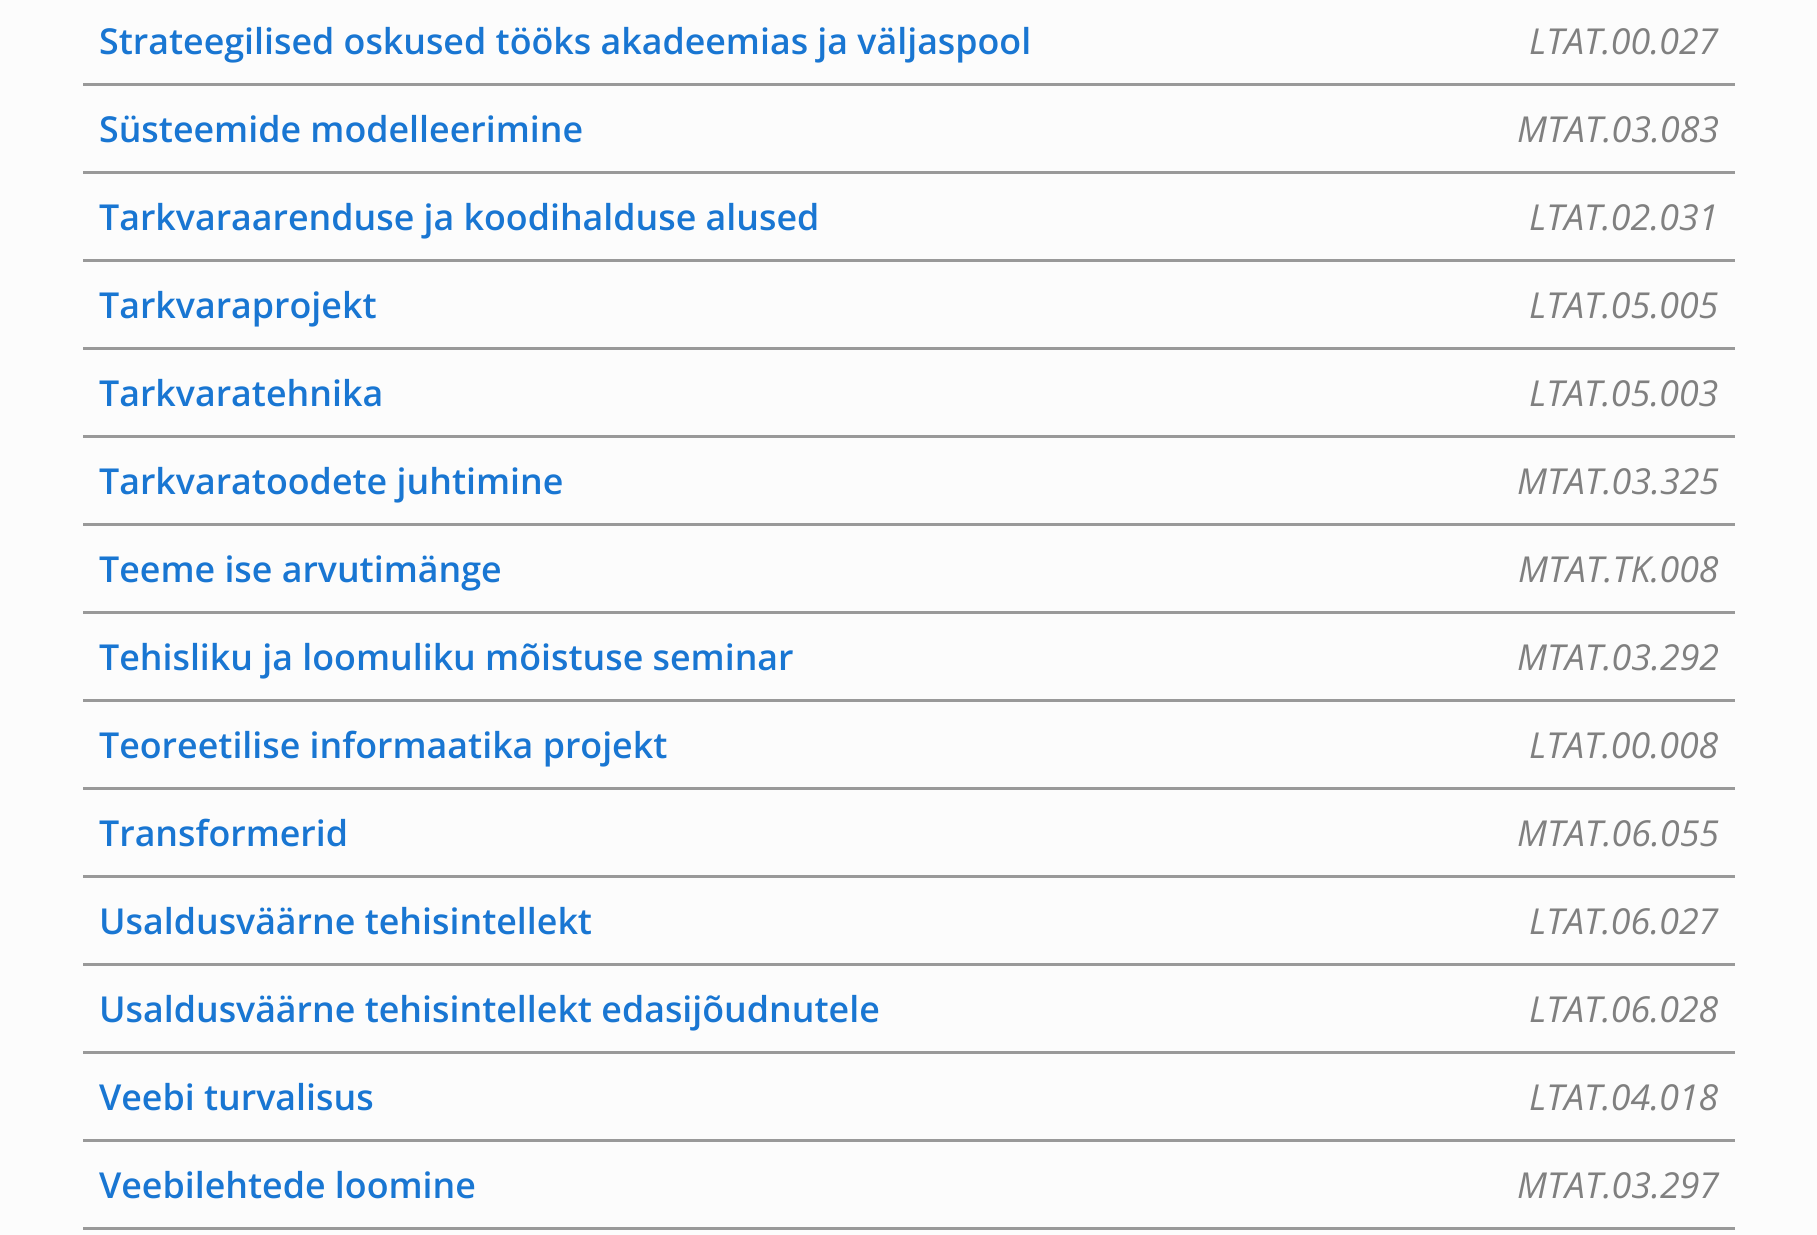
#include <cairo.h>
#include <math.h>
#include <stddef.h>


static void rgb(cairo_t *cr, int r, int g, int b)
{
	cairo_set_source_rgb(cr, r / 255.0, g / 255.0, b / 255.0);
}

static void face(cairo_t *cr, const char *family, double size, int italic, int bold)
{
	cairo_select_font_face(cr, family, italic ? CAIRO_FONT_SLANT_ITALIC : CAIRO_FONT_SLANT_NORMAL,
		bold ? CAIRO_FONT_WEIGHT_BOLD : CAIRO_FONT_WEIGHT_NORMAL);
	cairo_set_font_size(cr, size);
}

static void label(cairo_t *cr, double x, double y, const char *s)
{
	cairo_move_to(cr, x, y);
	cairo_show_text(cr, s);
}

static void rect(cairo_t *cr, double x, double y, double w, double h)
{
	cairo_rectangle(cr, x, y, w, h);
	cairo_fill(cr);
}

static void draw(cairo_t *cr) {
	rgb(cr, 252, 252, 252);
	cairo_paint(cr);
	rgb(cr, 153, 153, 153);
	rect(cr, 83, 83, 1652, 3);
	face(cr, "Open Sans SemiBold", 35.75, 0, 0);
	rgb(cr, 25, 118, 210);
	label(cr, 99, 54, "Strateegilised oskused tööks akadeemias ja väljaspool");
	face(cr, "Open Sans", 35.75, 1, 0);
	rgb(cr, 128, 128, 128);
	label(cr, 1529, 54, "LTAT.00.027");
	rgb(cr, 153, 153, 153);
	rect(cr, 83, 171, 1652, 3);
	face(cr, "Open Sans SemiBold", 35.75, 0, 0);
	rgb(cr, 25, 118, 210);
	label(cr, 99, 142, "Süsteemide modelleerimine");
	face(cr, "Open Sans", 35.75, 1, 0);
	rgb(cr, 128, 128, 128);
	label(cr, 1517, 142, "MTAT.03.083");
	rgb(cr, 153, 153, 153);
	rect(cr, 83, 259, 1652, 3);
	face(cr, "Open Sans SemiBold", 35.75, 0, 0);
	rgb(cr, 25, 118, 210);
	label(cr, 99, 230, "Tarkvaraarenduse ja koodihalduse alused");
	face(cr, "Open Sans", 35.75, 1, 0);
	rgb(cr, 128, 128, 128);
	label(cr, 1529, 230, "LTAT.02.031");
	rgb(cr, 153, 153, 153);
	rect(cr, 83, 347, 1652, 3);
	face(cr, "Open Sans SemiBold", 35.75, 0, 0);
	rgb(cr, 25, 118, 210);
	label(cr, 99, 318, "Tarkvaraprojekt");
	face(cr, "Open Sans", 35.75, 1, 0);
	rgb(cr, 128, 128, 128);
	label(cr, 1529, 318, "LTAT.05.005");
	rgb(cr, 153, 153, 153);
	rect(cr, 83, 435, 1652, 3);
	face(cr, "Open Sans SemiBold", 35.75, 0, 0);
	rgb(cr, 25, 118, 210);
	label(cr, 99, 406, "Tarkvaratehnika");
	face(cr, "Open Sans", 35.75, 1, 0);
	rgb(cr, 128, 128, 128);
	label(cr, 1529, 406, "LTAT.05.003");
	rgb(cr, 153, 153, 153);
	rect(cr, 83, 523, 1652, 3);
	face(cr, "Open Sans SemiBold", 35.75, 0, 0);
	rgb(cr, 25, 118, 210);
	label(cr, 99, 494, "Tarkvaratoodete juhtimine");
	face(cr, "Open Sans", 35.75, 1, 0);
	rgb(cr, 128, 128, 128);
	label(cr, 1517, 494, "MTAT.03.325");
	rgb(cr, 153, 153, 153);
	rect(cr, 83, 611, 1652, 3);
	face(cr, "Open Sans SemiBold", 35.75, 0, 0);
	rgb(cr, 25, 118, 210);
	label(cr, 99, 582, "Teeme ise arvutimänge");
	face(cr, "Open Sans", 35.75, 1, 0);
	rgb(cr, 128, 128, 128);
	label(cr, 1518, 582, "MTAT.TK.008");
	rgb(cr, 153, 153, 153);
	rect(cr, 83, 699, 1652, 3);
	face(cr, "Open Sans SemiBold", 35.75, 0, 0);
	rgb(cr, 25, 118, 210);
	label(cr, 99, 670, "Tehisliku ja loomuliku mõistuse seminar");
	face(cr, "Open Sans", 35.75, 1, 0);
	rgb(cr, 128, 128, 128);
	label(cr, 1517, 670, "MTAT.03.292");
	rgb(cr, 153, 153, 153);
	rect(cr, 83, 787, 1652, 3);
	face(cr, "Open Sans SemiBold", 35.75, 0, 0);
	rgb(cr, 25, 118, 210);
	label(cr, 99, 758, "Teoreetilise informaatika projekt");
	face(cr, "Open Sans", 35.75, 1, 0);
	rgb(cr, 128, 128, 128);
	label(cr, 1529, 758, "LTAT.00.008");
	rgb(cr, 153, 153, 153);
	rect(cr, 83, 875, 1652, 3);
	face(cr, "Open Sans SemiBold", 35.75, 0, 0);
	rgb(cr, 25, 118, 210);
	label(cr, 99, 846, "Transformerid");
	face(cr, "Open Sans", 35.75, 1, 0);
	rgb(cr, 128, 128, 128);
	label(cr, 1517, 846, "MTAT.06.055");
	rgb(cr, 153, 153, 153);
	rect(cr, 83, 963, 1652, 3);
	face(cr, "Open Sans SemiBold", 35.75, 0, 0);
	rgb(cr, 25, 118, 210);
	label(cr, 99, 934, "Usaldusväärne tehisintellekt");
	face(cr, "Open Sans", 35.75, 1, 0);
	rgb(cr, 128, 128, 128);
	label(cr, 1529, 934, "LTAT.06.027");
	rgb(cr, 153, 153, 153);
	rect(cr, 83, 1051, 1652, 3);
	face(cr, "Open Sans SemiBold", 35.75, 0, 0);
	rgb(cr, 25, 118, 210);
	label(cr, 99, 1022, "Usaldusväärne tehisintellekt edasijõudnutele");
	face(cr, "Open Sans", 35.75, 1, 0);
	rgb(cr, 128, 128, 128);
	label(cr, 1529, 1022, "LTAT.06.028");
	rgb(cr, 153, 153, 153);
	rect(cr, 83, 1139, 1652, 3);
	face(cr, "Open Sans SemiBold", 35.75, 0, 0);
	rgb(cr, 25, 118, 210);
	label(cr, 99, 1110, "Veebi turvalisus");
	face(cr, "Open Sans", 35.75, 1, 0);
	rgb(cr, 128, 128, 128);
	label(cr, 1529, 1110, "LTAT.04.018");
	rgb(cr, 153, 153, 153);
	rect(cr, 83, 1227, 1652, 3);
	face(cr, "Open Sans SemiBold", 35.75, 0, 0);
	rgb(cr, 25, 118, 210);
	label(cr, 99, 1198, "Veebilehtede loomine");
	face(cr, "Open Sans", 35.75, 1, 0);
	rgb(cr, 128, 128, 128);
	label(cr, 1517, 1198, "MTAT.03.297");
}

int main(void) {
	cairo_surface_t *surface = cairo_image_surface_create(CAIRO_FORMAT_RGB24, 1817, 1235);
	cairo_t *cr = cairo_create(surface);
	cairo_font_options_t *options = cairo_font_options_create();
	cairo_font_options_set_hint_metrics(options, CAIRO_HINT_METRICS_OFF);
	cairo_font_options_set_hint_style(options, CAIRO_HINT_STYLE_NONE);
	cairo_set_font_options(cr, options);
	cairo_set_miter_limit(cr, 4);
	draw(cr);
	cairo_surface_write_to_png(surface, "render.png");
	cairo_font_options_destroy(options);
	cairo_destroy(cr);
	cairo_surface_destroy(surface);
	return 0;
}
